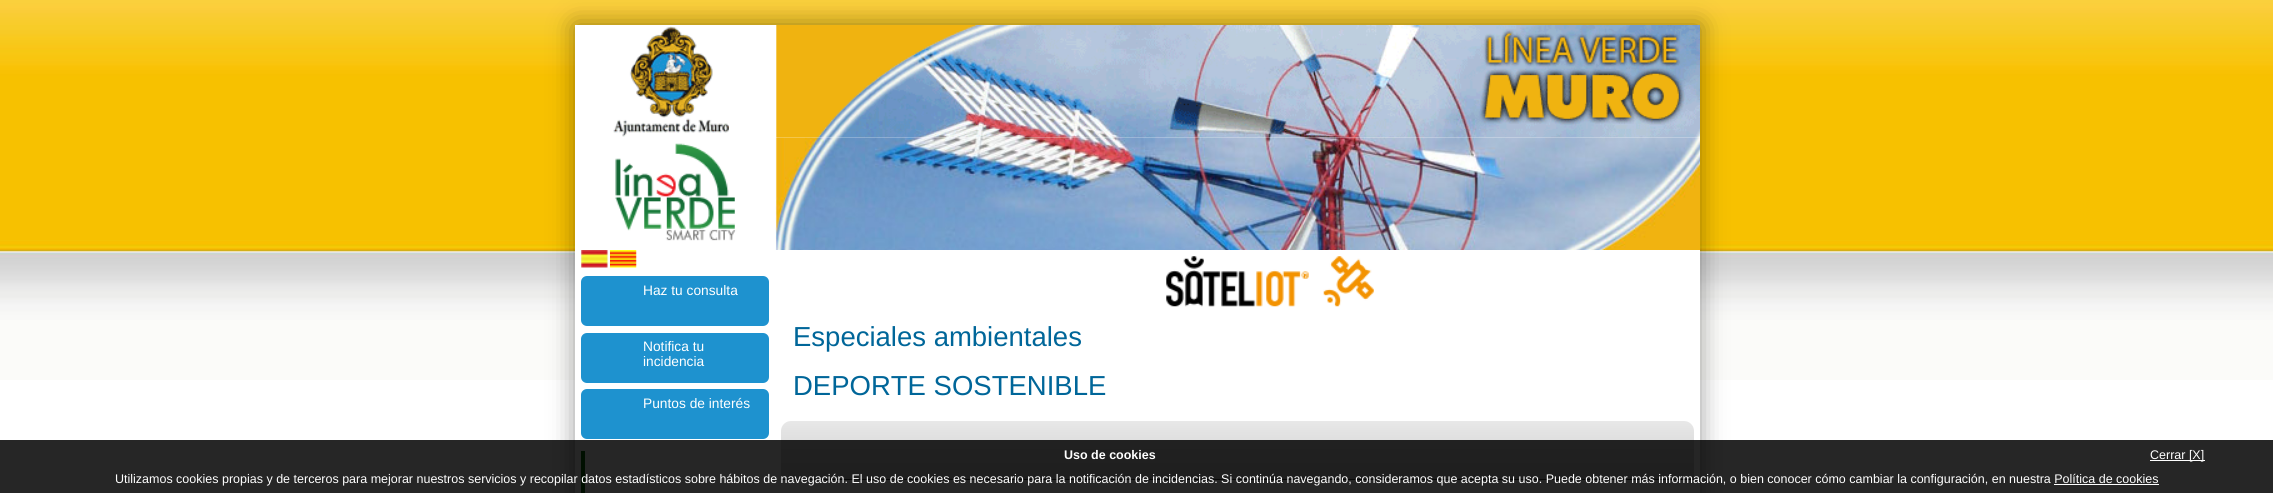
#include <cairo.h>
#include <math.h>
#include <stddef.h>


static void rgb(cairo_t *cr, int r, int g, int b)
{
	cairo_set_source_rgb(cr, r / 255.0, g / 255.0, b / 255.0);
}

static void face(cairo_t *cr, const char *family, double size, int italic, int bold)
{
	cairo_select_font_face(cr, family, italic ? CAIRO_FONT_SLANT_ITALIC : CAIRO_FONT_SLANT_NORMAL,
		bold ? CAIRO_FONT_WEIGHT_BOLD : CAIRO_FONT_WEIGHT_NORMAL);
	cairo_set_font_size(cr, size);
}

static void label(cairo_t *cr, double x, double y, const char *s)
{
	cairo_move_to(cr, x, y);
	cairo_show_text(cr, s);
}

static void rect(cairo_t *cr, double x, double y, double w, double h)
{
	cairo_rectangle(cr, x, y, w, h);
	cairo_fill(cr);
}

static void rrect(cairo_t *cr, double x, double y, double w, double h, double r)
{
	cairo_new_sub_path(cr);
	cairo_arc(cr, x + w - r, y + h - r, r, 0, M_PI / 2);
	cairo_arc(cr, x + r, y + h - r, r, M_PI / 2, M_PI);
	cairo_arc(cr, x + r, y + r, r, M_PI, 1.5 * M_PI);
	cairo_arc(cr, x + w - r, y + r, r, 1.5 * M_PI, 2 * M_PI);
	cairo_close_path(cr);
}

static void soft_shadow(cairo_t *cr, double x, double y, double w, double h, double r, double blur, double alpha)
{
	cairo_push_group_with_content(cr, CAIRO_CONTENT_ALPHA);
	cairo_set_operator(cr, CAIRO_OPERATOR_SOURCE);
	for (int i = 15; i >= -15 && fmin(w, h) + blur * i / 3 > 0; i -= 2) {
		double e = blur * i / 6;
		cairo_set_source_rgba(cr, 0, 0, 0, alpha * erfc((i - 1) / 8.5) / 2);
		rrect(cr, x - e, y - e, w + 2 * e, h + 2 * e, fmax(0, fmin(r + e + blur * .6, fmin(w, h) / 2 + e)));
		cairo_fill(cr);
	}
	cairo_pattern_t *soft = cairo_pop_group(cr);
	cairo_mask(cr, soft);
	cairo_pattern_destroy(soft);
}

static void image(cairo_t *cr, const char *path, double x, double y, double w, double h)
{
	cairo_surface_t *image = cairo_image_surface_create_from_png(path);
	cairo_save(cr);
	cairo_set_source_surface(cr, image, x, y);
	cairo_rectangle(cr, x, y, w, h);
	cairo_fill(cr);
	cairo_restore(cr);
	cairo_surface_destroy(image);
}

static void draw(cairo_t *cr) {
	cairo_pattern_t *gradient;
	rgb(cr, 255, 255, 255);
	cairo_paint(cr);
	image(cr, "image0.png", 0, 0, 2273, 380);
	rgb(cr, 0, 0, 0);
	soft_shadow(cr, 575, 25, 1125, 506, 0, 12.5, 0.4);
	rgb(cr, 255, 255, 255);
	rect(cr, 575, 25, 1125, 468);
	image(cr, "image1.png", 613, 25, 1087, 113);
	image(cr, "image2.png", 615, 137, 162, 104);
	image(cr, "image3.png", 775, 137, 925, 113);
	image(cr, "image4.png", 1166, 256, 208, 51);
	image(cr, "image5.png", 581, 250, 27, 18);
	image(cr, "image6.png", 610, 250, 27, 18);
	rgb(cr, 30, 146, 207);
	rrect(cr, 581, 276, 188, 50, 6);
	cairo_fill(cr);
	face(cr, "Liberation Sans", 13.75, 0, 0);
	rgb(cr, 255, 255, 255);
	label(cr, 643, 295, "Haz tu consulta");
	rgb(cr, 30, 146, 207);
	rrect(cr, 581, 333, 188, 50, 6);
	cairo_fill(cr);
	rgb(cr, 255, 255, 255);
	label(cr, 643, 351, "Notifica tu");
	label(cr, 643, 366, "incidencia");
	rgb(cr, 30, 146, 207);
	rrect(cr, 581, 389, 188, 50, 6);
	cairo_fill(cr);
	rgb(cr, 255, 255, 255);
	label(cr, 643, 408, "Puntos de interés");
	rgb(cr, 0, 102, 0);
	rect(cr, 581, 451, 4, 42);
	face(cr, "Liberation Sans", 27.5, 0, 0);
	rgb(cr, 0, 102, 153);
	label(cr, 793, 346, "Especiales ambientales");
	label(cr, 793, 395, "DEPORTE SOSTENIBLE");
	gradient = cairo_pattern_create_linear(1238, 421, 1238, 479);
	cairo_pattern_add_color_stop_rgba(gradient, 0, 0.91, 0.91, 0.91, 1);
	cairo_pattern_add_color_stop_rgba(gradient, 1, 0.8, 0.8, 0.8, 1);
	cairo_set_source(cr, gradient);
	cairo_pattern_destroy(gradient);
	cairo_new_path(cr);
	cairo_move_to(cr, 791, 421);
	cairo_line_to(cr, 1684, 421);
	cairo_curve_to(cr, 1689.5, 421, 1694, 425.5, 1694, 431);
	cairo_line_to(cr, 1694, 479);
	cairo_line_to(cr, 781, 479);
	cairo_line_to(cr, 781, 431);
	cairo_curve_to(cr, 781, 425.5, 785.5, 421, 791, 421);
	cairo_close_path(cr);
	cairo_fill(cr);
	rgb(cr, 51, 51, 51);
	rect(cr, 781, 479, 913, 1);
	cairo_set_source_rgba(cr, 0, 0, 0, 0.85);
	rect(cr, 0, 440, 2273, 53);
	face(cr, "Liberation Sans", 12.5, 0, 1);
	rgb(cr, 255, 255, 255);
	label(cr, 1064, 459, "Uso de cookies");
	rect(cr, 2150, 460, 55, 1);
	face(cr, "Liberation Sans", 12.5, 0, 0);
	label(cr, 2150, 459, "Cerrar [X]");
	label(cr, 115, 483, "Utilizamos cookies propias y de terceros para mejorar nuestros servicios y recopilar datos estadísticos sobre hábitos de navegación. El uso de cookies es necesario para la notificación de incidencias. Si continúa navegando, consideramos que acepta su uso. Puede obtener más información, o bien conocer cómo cambiar la configuración, en nuestra Política de cookies");
	rect(cr, 2054, 484, 105, 1);
}

int main(void) {
	cairo_surface_t *surface = cairo_image_surface_create(CAIRO_FORMAT_RGB24, 2273, 493);
	cairo_t *cr = cairo_create(surface);
	cairo_font_options_t *options = cairo_font_options_create();
	cairo_font_options_set_hint_metrics(options, CAIRO_HINT_METRICS_OFF);
	cairo_font_options_set_hint_style(options, CAIRO_HINT_STYLE_NONE);
	cairo_set_font_options(cr, options);
	cairo_set_miter_limit(cr, 4);
	draw(cr);
	cairo_surface_write_to_png(surface, "render.png");
	cairo_font_options_destroy(options);
	cairo_destroy(cr);
	cairo_surface_destroy(surface);
	return 0;
}
